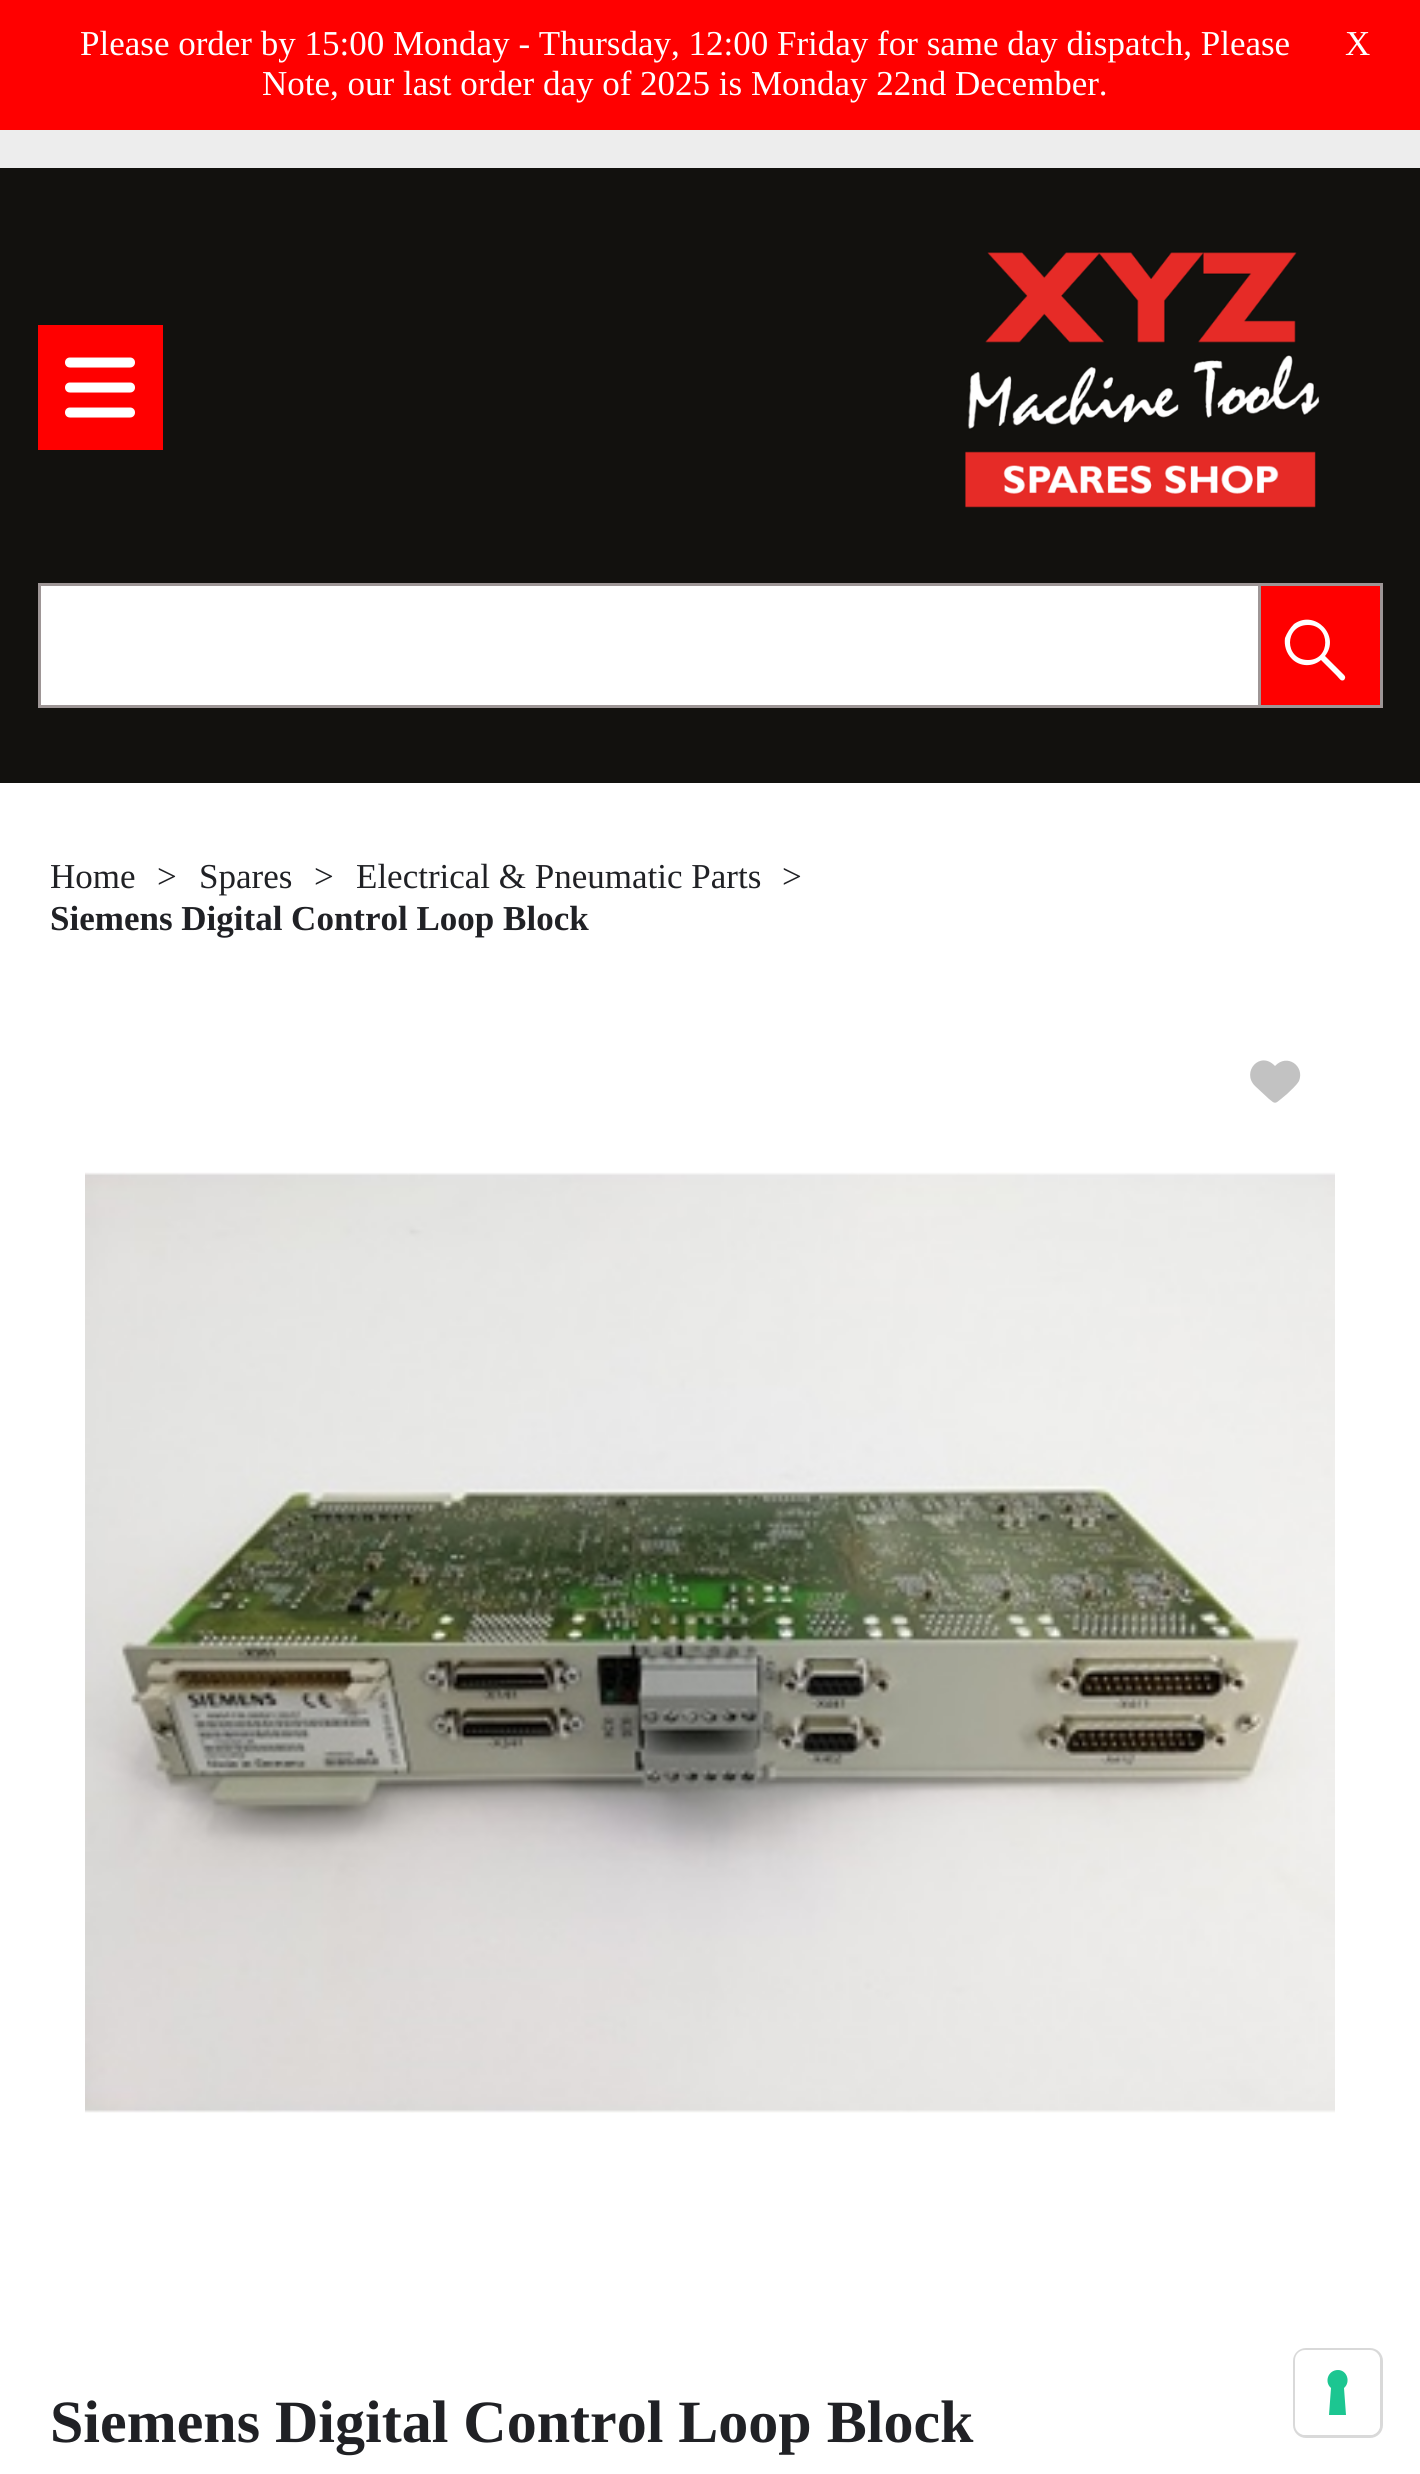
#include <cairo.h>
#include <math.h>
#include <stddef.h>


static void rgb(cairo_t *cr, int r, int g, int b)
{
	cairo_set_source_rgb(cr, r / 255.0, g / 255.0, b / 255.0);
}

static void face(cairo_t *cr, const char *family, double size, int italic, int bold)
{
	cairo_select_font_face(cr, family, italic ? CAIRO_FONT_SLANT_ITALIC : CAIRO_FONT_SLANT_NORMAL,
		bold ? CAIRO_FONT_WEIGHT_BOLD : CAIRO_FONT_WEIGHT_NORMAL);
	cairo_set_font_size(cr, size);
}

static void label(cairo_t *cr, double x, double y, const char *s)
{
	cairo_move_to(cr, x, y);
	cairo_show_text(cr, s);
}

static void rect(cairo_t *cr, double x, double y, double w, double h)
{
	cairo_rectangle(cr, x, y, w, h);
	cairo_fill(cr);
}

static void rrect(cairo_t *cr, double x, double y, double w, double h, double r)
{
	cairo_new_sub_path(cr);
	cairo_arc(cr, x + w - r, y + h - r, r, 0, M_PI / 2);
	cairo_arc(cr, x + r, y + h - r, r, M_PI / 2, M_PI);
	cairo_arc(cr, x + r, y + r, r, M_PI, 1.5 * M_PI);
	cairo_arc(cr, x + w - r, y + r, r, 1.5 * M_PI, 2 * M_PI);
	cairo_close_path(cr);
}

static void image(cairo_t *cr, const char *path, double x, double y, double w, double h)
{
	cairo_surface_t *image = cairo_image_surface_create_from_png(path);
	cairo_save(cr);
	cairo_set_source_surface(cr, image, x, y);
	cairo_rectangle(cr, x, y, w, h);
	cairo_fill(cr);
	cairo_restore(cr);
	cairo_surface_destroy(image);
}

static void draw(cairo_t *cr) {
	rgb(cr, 255, 255, 255);
	cairo_paint(cr);
	rgb(cr, 18, 17, 14);
	rect(cr, 0, 168, 1420, 615);
	rgb(cr, 255, 0, 0);
	rect(cr, 0, 0, 1420, 130);
	face(cr, "Liberation Serif", 35, 0, 0);
	rgb(cr, 255, 255, 255);
	label(cr, 80, 55, "Please order by 15:00 Monday - Thursday, 12:00 Friday for same day dispatch, Please");
	label(cr, 1345, 55, "X");
	label(cr, 262, 95, "Note, our last order day of 2025 is Monday 22nd December.");
	rgb(cr, 237, 237, 237);
	rect(cr, 0, 130, 1420, 38);
	rgb(cr, 255, 0, 0);
	rect(cr, 38, 325, 125, 125);
	image(cr, "image0.png", 65, 357, 70, 61);
	image(cr, "image1.png", 965, 251, 355, 257);
	rgb(cr, 255, 255, 255);
	rect(cr, 41, 586, 1217, 119);
	rgb(cr, 158, 150, 150);
	rect(cr, 38, 583, 1220, 3);
	rect(cr, 38, 705, 1220, 3);
	rect(cr, 38, 583, 3, 125);
	rgb(cr, 255, 0, 0);
	cairo_rectangle(cr, 1259.5, 584.5, 122, 122);
	cairo_fill_preserve(cr);
	rgb(cr, 158, 150, 150);
	cairo_set_line_width(cr, 3);
	cairo_stroke(cr);
	rgb(cr, 255, 255, 255);
	cairo_new_path(cr);
	cairo_move_to(cr, 1344, 675);
	cairo_line_to(cr, 1325, 656);
	cairo_curve_to(cr, 1341, 636, 1315, 609, 1294, 624);
	cairo_curve_to(cr, 1290, 628, 1287, 633, 1285, 638);
	cairo_curve_to(cr, 1284, 645, 1286, 653, 1292, 659);
	cairo_curve_to(cr, 1300, 667, 1313, 667, 1321, 660);
	cairo_line_to(cr, 1337, 676);
	cairo_curve_to(cr, 1339, 678, 1341, 682, 1344, 680);
	cairo_curve_to(cr, 1345, 679, 1346, 677, 1344, 675);
	cairo_close_path(cr);
	cairo_move_to(cr, 1308, 660);
	cairo_curve_to(cr, 1284, 660, 1284, 625, 1308, 625);
	cairo_curve_to(cr, 1331, 625, 1331, 660, 1308, 660);
	cairo_close_path(cr);
	cairo_fill(cr);
	rgb(cr, 32, 33, 37);
	label(cr, 50, 888, "Home");
	label(cr, 157, 888, ">");
	label(cr, 199, 888, "Spares");
	label(cr, 314, 888, ">");
	label(cr, 356, 888, "Electrical & Pneumatic Parts");
	label(cr, 782, 888, ">");
	face(cr, "Liberation Serif", 35, 0, 1);
	label(cr, 50, 930, "Siemens Digital Control Loop Block");
	rgb(cr, 194, 194, 194);
	cairo_new_path(cr);
	cairo_move_to(cr, 1255, 1086);
	cairo_line_to(cr, 1269, 1099);
	cairo_curve_to(cr, 1275, 1104, 1275, 1104, 1281, 1099);
	cairo_line_to(cr, 1287, 1094);
	cairo_curve_to(cr, 1291, 1090, 1296, 1086, 1299, 1081);
	cairo_curve_to(cr, 1305, 1066, 1287, 1053, 1275, 1066);
	cairo_curve_to(cr, 1260, 1050, 1241, 1072, 1255, 1086);
	cairo_close_path(cr);
	cairo_fill(cr);
	image(cr, "image2.png", 85, 1172, 1250, 941);
	face(cr, "Liberation Serif", 60, 0, 1);
	rgb(cr, 32, 33, 37);
	label(cr, 50, 2442, "Siemens Digital Control Loop Block");
	rrect(cr, 1294.5, 2349.5, 87, 87, 11.5);
	rgb(cr, 217, 217, 217);
	cairo_stroke(cr);
	rgb(cr, 255, 255, 255);
	rrect(cr, 1295, 2350, 85, 85, 10);
	cairo_fill(cr);
	rgb(cr, 28, 198, 145);
	cairo_set_fill_rule(cr, CAIRO_FILL_RULE_EVEN_ODD);
	cairo_new_path(cr);
	cairo_move_to(cr, 1338, 2370);
	cairo_curve_to(cr, 1347, 2370, 1351, 2382, 1344, 2388);
	cairo_line_to(cr, 1346, 2415);
	cairo_line_to(cr, 1329, 2415);
	cairo_line_to(cr, 1331, 2388);
	cairo_curve_to(cr, 1324, 2382, 1328, 2370, 1338, 2370);
	cairo_close_path(cr);
	cairo_fill(cr);
}

int main(void) {
	cairo_surface_t *surface = cairo_image_surface_create(CAIRO_FORMAT_RGB24, 1420, 2474);
	cairo_t *cr = cairo_create(surface);
	cairo_font_options_t *options = cairo_font_options_create();
	cairo_font_options_set_hint_metrics(options, CAIRO_HINT_METRICS_OFF);
	cairo_font_options_set_hint_style(options, CAIRO_HINT_STYLE_NONE);
	cairo_set_font_options(cr, options);
	cairo_set_miter_limit(cr, 4);
	draw(cr);
	cairo_surface_write_to_png(surface, "render.png");
	cairo_font_options_destroy(options);
	cairo_destroy(cr);
	cairo_surface_destroy(surface);
	return 0;
}
